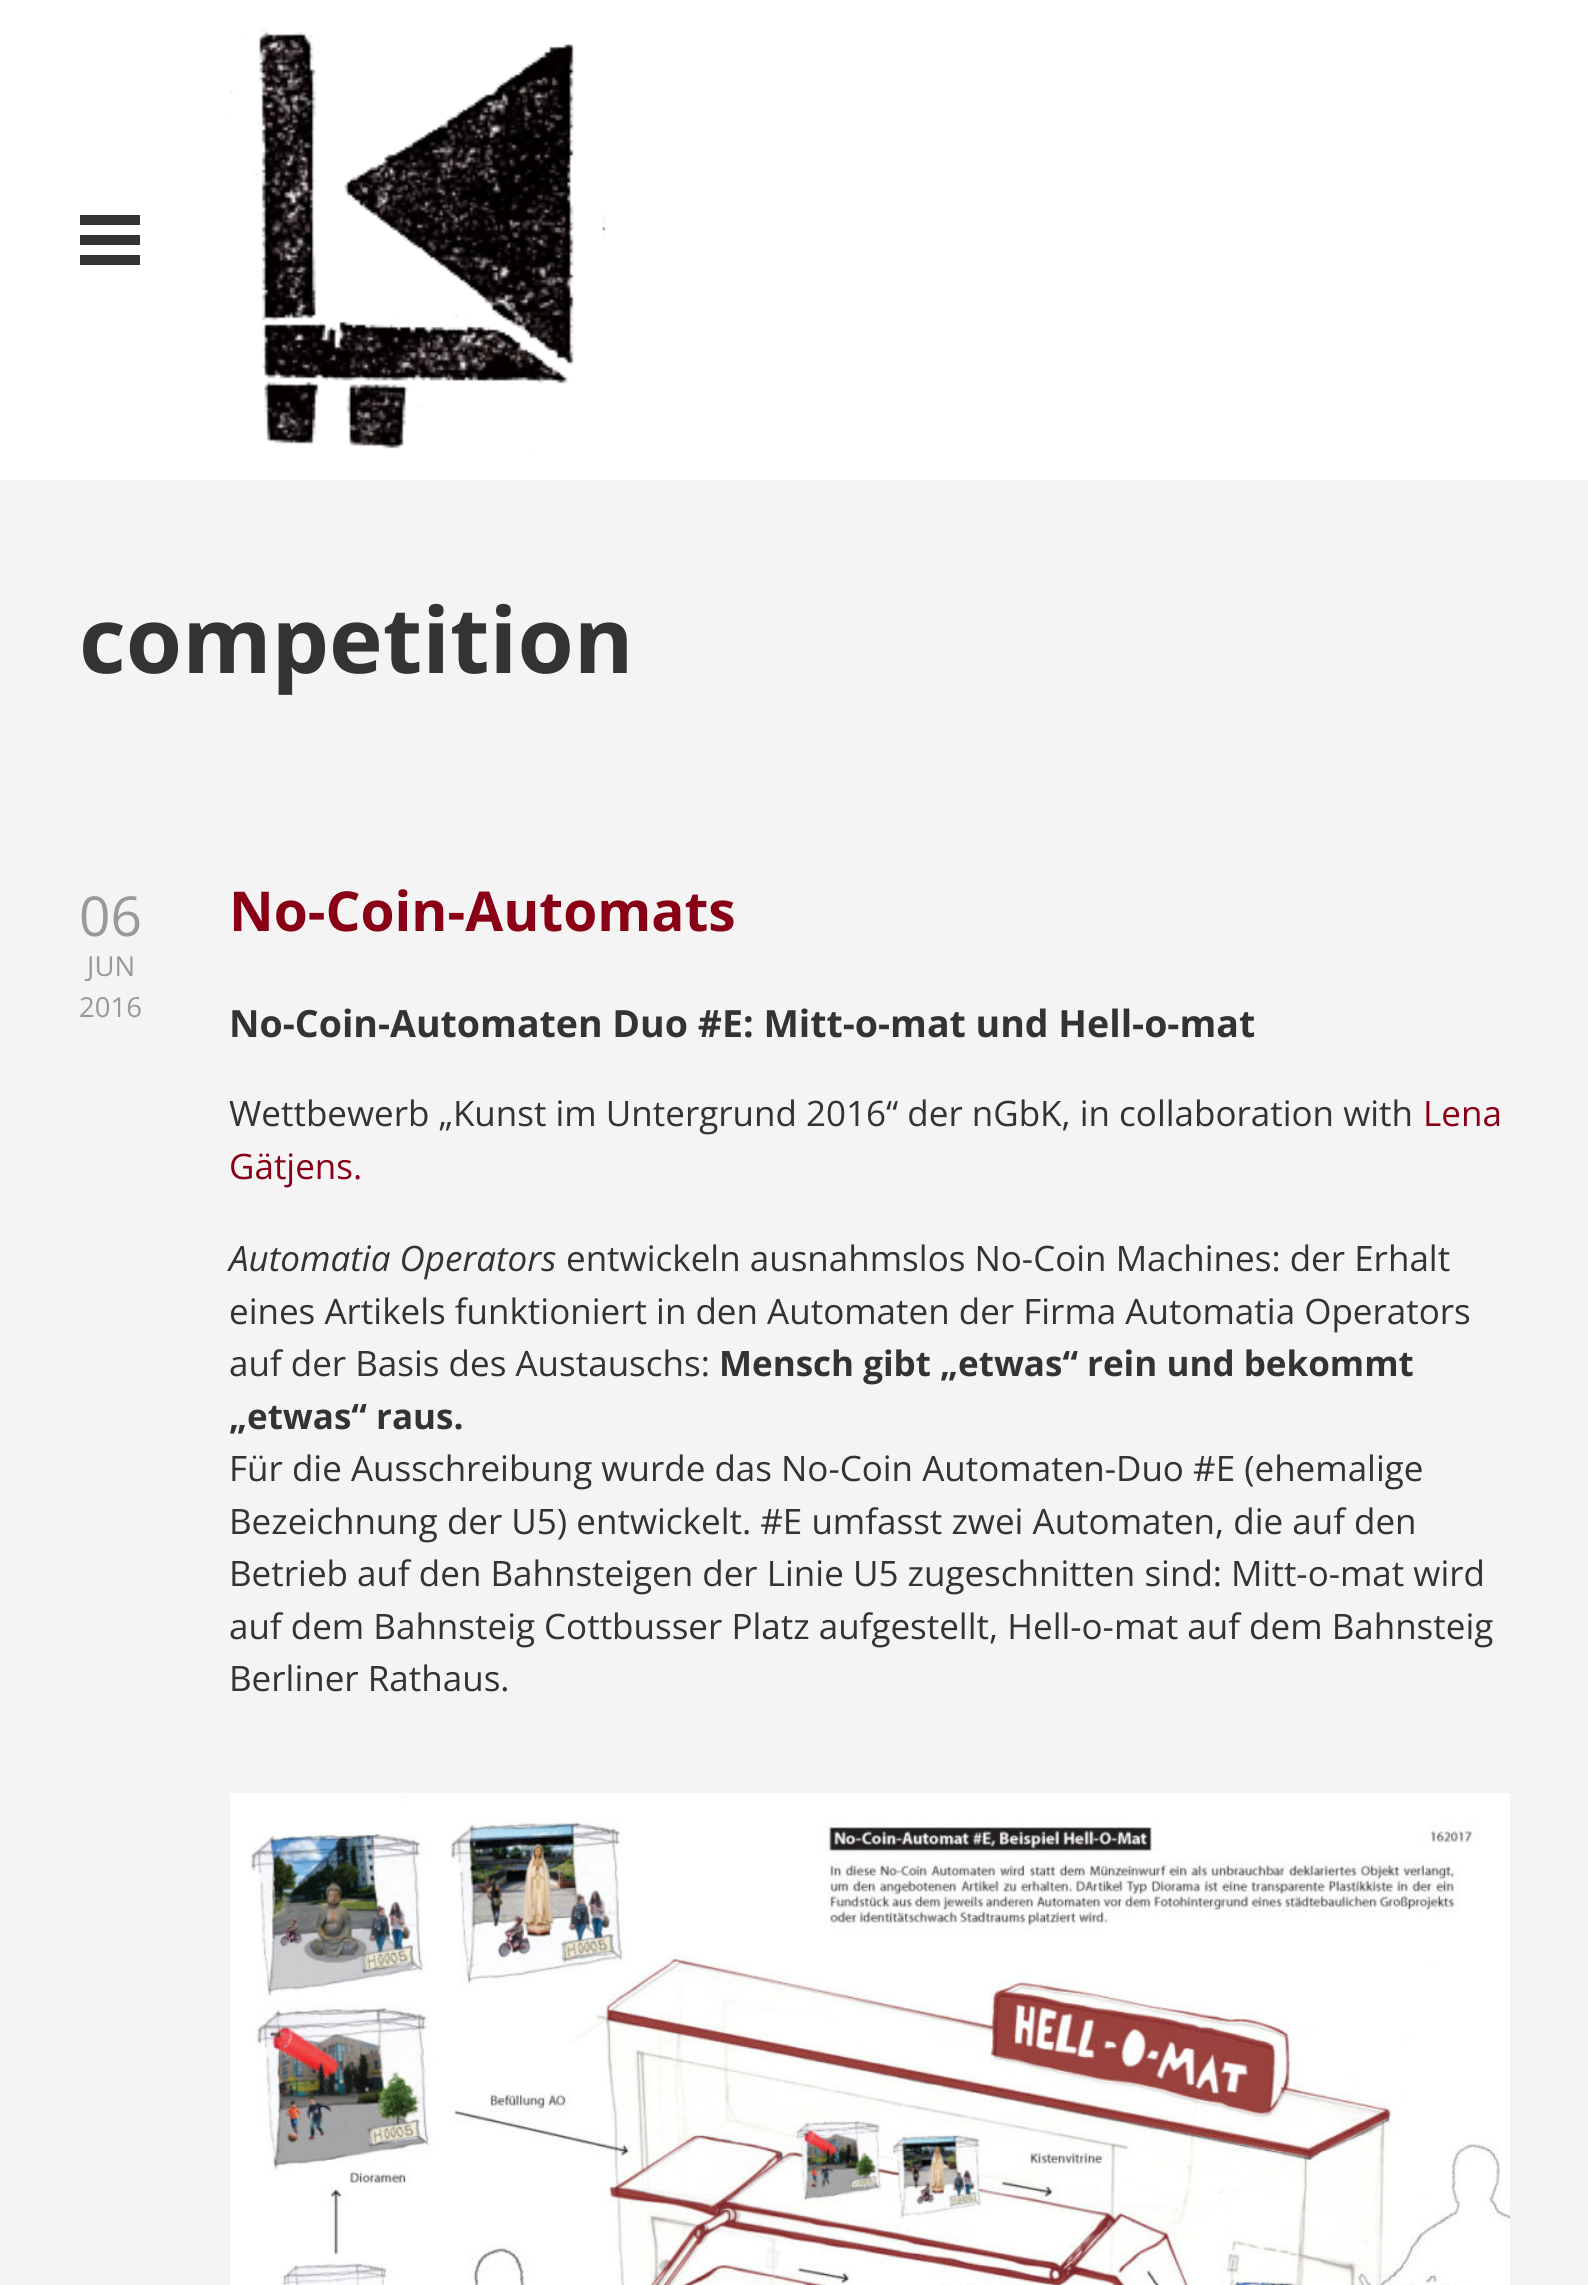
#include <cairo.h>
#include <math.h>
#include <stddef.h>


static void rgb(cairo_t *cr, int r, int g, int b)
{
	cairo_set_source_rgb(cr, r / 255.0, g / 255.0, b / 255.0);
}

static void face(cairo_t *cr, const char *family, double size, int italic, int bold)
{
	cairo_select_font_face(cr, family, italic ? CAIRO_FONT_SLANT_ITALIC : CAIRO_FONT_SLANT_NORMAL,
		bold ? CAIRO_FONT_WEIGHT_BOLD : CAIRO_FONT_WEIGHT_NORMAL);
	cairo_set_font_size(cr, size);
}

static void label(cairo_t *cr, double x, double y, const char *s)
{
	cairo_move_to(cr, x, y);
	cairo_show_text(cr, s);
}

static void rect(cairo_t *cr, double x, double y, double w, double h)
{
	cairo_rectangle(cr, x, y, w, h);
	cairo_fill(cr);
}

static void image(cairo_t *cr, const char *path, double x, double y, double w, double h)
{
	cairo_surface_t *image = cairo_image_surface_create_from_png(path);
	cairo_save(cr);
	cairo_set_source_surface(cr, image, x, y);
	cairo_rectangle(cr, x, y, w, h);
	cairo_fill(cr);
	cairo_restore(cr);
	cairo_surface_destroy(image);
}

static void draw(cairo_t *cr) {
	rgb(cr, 255, 255, 255);
	cairo_paint(cr);
	rgb(cr, 51, 51, 51);
	rect(cr, 80, 215, 60, 10);
	rect(cr, 80, 235, 60, 10);
	rect(cr, 80, 255, 60, 10);
	image(cr, "image0.png", 230, 28, 375, 427);
	rgb(cr, 244, 244, 244);
	rect(cr, 0, 480, 1588, 1805);
	face(cr, "Open Sans", 91, 0, 1);
	rgb(cr, 51, 51, 51);
	label(cr, 79, 673, "competition");
	face(cr, "Open Sans", 55, 0, 0);
	rgb(cr, 153, 153, 153);
	label(cr, 79, 936, "06");
	face(cr, "Open Sans", 27.5, 0, 0);
	label(cr, 87, 976, "JUN");
	label(cr, 79, 1017, "2016");
	face(cr, "Open Sans", 55, 0, 1);
	rgb(cr, 137, 0, 22);
	label(cr, 229, 931, "No-Coin-Automats");
	face(cr, "Open Sans", 37.5, 0, 1);
	rgb(cr, 51, 51, 51);
	label(cr, 229, 1037, "No-Coin-Automaten Duo #E: Mitt-o-mat und Hell-o-mat");
	face(cr, "Open Sans", 35, 0, 0);
	label(cr, 229, 1126, "Wettbewerb „Kunst im Untergrund 2016“ der nGbK, in collaboration with");
	rgb(cr, 137, 0, 22);
	label(cr, 1423, 1126, "Lena");
	label(cr, 229, 1179, "Gätjens.");
	face(cr, "Open Sans", 35, 1, 0);
	rgb(cr, 51, 51, 51);
	label(cr, 229, 1271, "Automatia Operators");
	face(cr, "Open Sans", 35, 0, 0);
	label(cr, 566, 1271, "entwickeln ausnahmslos No-Coin Machines: der Erhalt");
	label(cr, 229, 1324, "eines Artikels funktioniert in den Automaten der Firma Automatia Operators");
	label(cr, 229, 1376, "auf der Basis des Austauschs:");
	face(cr, "Open Sans", 35, 0, 1);
	label(cr, 719, 1376, "Mensch gibt „etwas“ rein und bekommt");
	label(cr, 229, 1429, "„etwas“ raus.");
	face(cr, "Open Sans", 35, 0, 0);
	label(cr, 229, 1481, "Für die Ausschreibung wurde das No-Coin Automaten-Duo #E (ehemalige");
	label(cr, 229, 1534, "Bezeichnung der U5) entwickelt. #E umfasst zwei Automaten, die auf den");
	label(cr, 229, 1586, "Betrieb auf den Bahnsteigen der Linie U5 zugeschnitten sind: Mitt-o-mat wird");
	label(cr, 229, 1639, "auf dem Bahnsteig Cottbusser Platz aufgestellt, Hell-o-mat auf dem Bahnsteig");
	label(cr, 229, 1691, "Berliner Rathaus.");
	image(cr, "image1.png", 230, 1793, 1280, 492);
}

int main(void) {
	cairo_surface_t *surface = cairo_image_surface_create(CAIRO_FORMAT_RGB24, 1588, 2285);
	cairo_t *cr = cairo_create(surface);
	cairo_font_options_t *options = cairo_font_options_create();
	cairo_font_options_set_hint_metrics(options, CAIRO_HINT_METRICS_OFF);
	cairo_font_options_set_hint_style(options, CAIRO_HINT_STYLE_NONE);
	cairo_set_font_options(cr, options);
	cairo_set_miter_limit(cr, 4);
	draw(cr);
	cairo_surface_write_to_png(surface, "render.png");
	cairo_font_options_destroy(options);
	cairo_destroy(cr);
	cairo_surface_destroy(surface);
	return 0;
}
